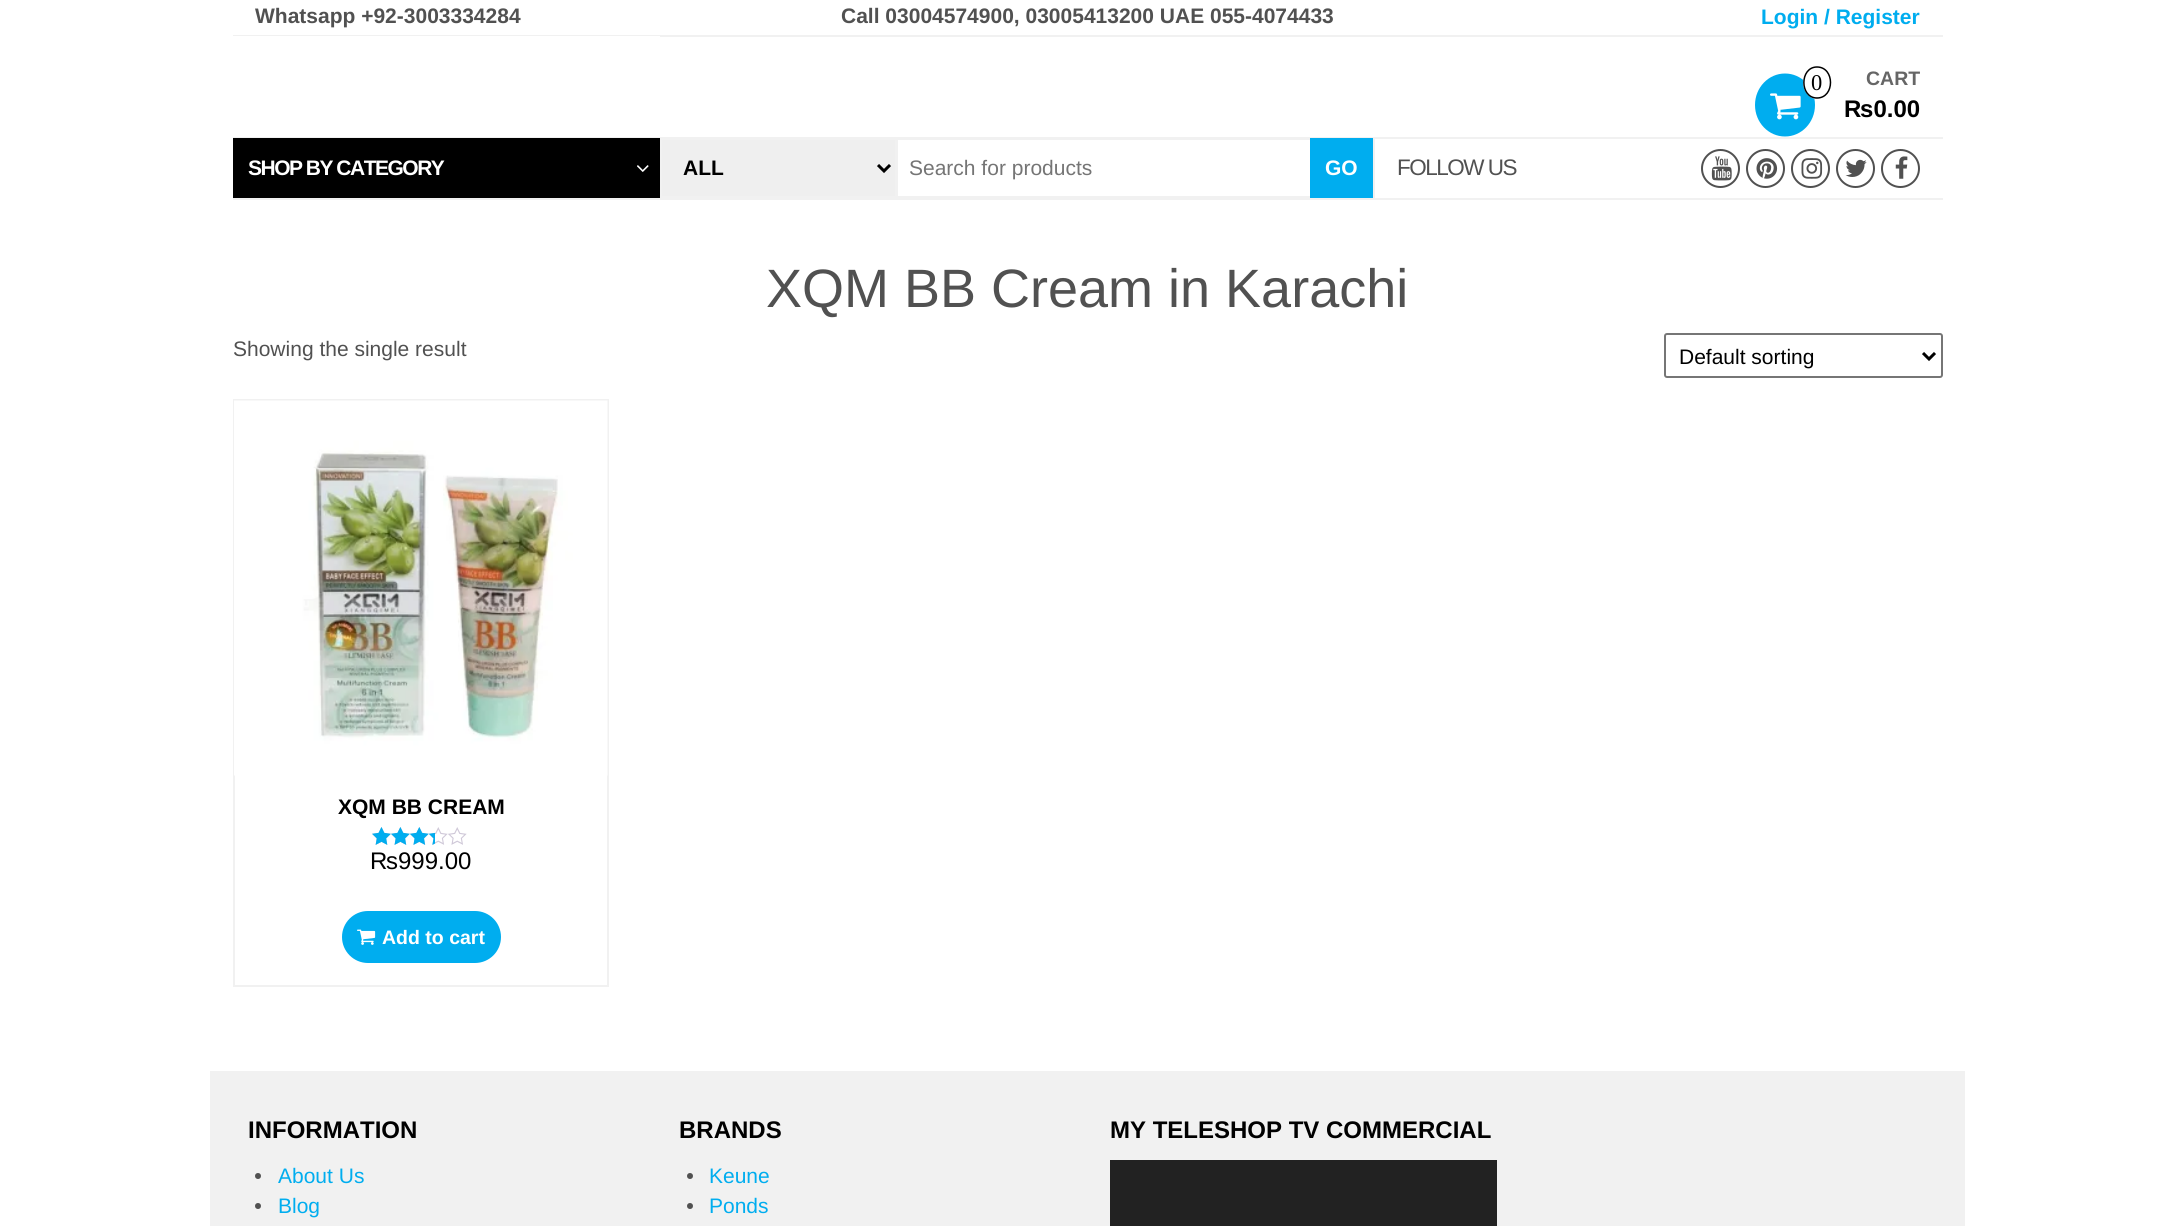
#include <cairo.h>
#include <math.h>
#include <stddef.h>


static void rgb(cairo_t *cr, int r, int g, int b)
{
	cairo_set_source_rgb(cr, r / 255.0, g / 255.0, b / 255.0);
}

static void face(cairo_t *cr, const char *family, double size, int italic, int bold)
{
	cairo_select_font_face(cr, family, italic ? CAIRO_FONT_SLANT_ITALIC : CAIRO_FONT_SLANT_NORMAL,
		bold ? CAIRO_FONT_WEIGHT_BOLD : CAIRO_FONT_WEIGHT_NORMAL);
	cairo_set_font_size(cr, size);
}

static void label(cairo_t *cr, double x, double y, const char *s)
{
	cairo_move_to(cr, x, y);
	cairo_show_text(cr, s);
}

static void tracked(cairo_t *cr, double x, double y, const char *s, double letter, double word)
{
	cairo_move_to(cr, x, y);
	while (*s) {
		char ch[5] = {0};
		int n = 0;
		do ch[n++] = *s++; while ((*s & 0xC0) == 0x80);
		cairo_show_text(cr, ch);
		cairo_rel_move_to(cr, letter + word * (*ch == ' '), 0);
	}
}

static void rect(cairo_t *cr, double x, double y, double w, double h)
{
	cairo_rectangle(cr, x, y, w, h);
	cairo_fill(cr);
}

static void rrect(cairo_t *cr, double x, double y, double w, double h, double r)
{
	cairo_new_sub_path(cr);
	cairo_arc(cr, x + w - r, y + h - r, r, 0, M_PI / 2);
	cairo_arc(cr, x + r, y + h - r, r, M_PI / 2, M_PI);
	cairo_arc(cr, x + r, y + r, r, M_PI, 1.5 * M_PI);
	cairo_arc(cr, x + w - r, y + r, r, 1.5 * M_PI, 2 * M_PI);
	cairo_close_path(cr);
}

static void image(cairo_t *cr, const char *path, double x, double y, double w, double h)
{
	cairo_surface_t *image = cairo_image_surface_create_from_png(path);
	cairo_save(cr);
	cairo_set_source_surface(cr, image, x, y);
	cairo_rectangle(cr, x, y, w, h);
	cairo_fill(cr);
	cairo_restore(cr);
	cairo_surface_destroy(image);
}

static void draw(cairo_t *cr) {
	rgb(cr, 255, 255, 255);
	cairo_paint(cr);
	rgb(cr, 241, 241, 241);
	rect(cr, 233, 35, 1710, 2);
	face(cr, "Liberation Sans", 21, 0, 1);
	rgb(cr, 81, 81, 81);
	label(cr, 255, 23, "Whatsapp +92-3003334284");
	label(cr, 841, 23, "Call 03004574900, 03005413200 UAE 055-4074433");
	rgb(cr, 0, 173, 239);
	label(cr, 1761, 24, "Login / Register");
	rgb(cr, 241, 241, 241);
	rect(cr, 233, 137, 1710, 2);
	rgb(cr, 255, 255, 255);
	rect(cr, 233, 36, 427, 1);
	rgb(cr, 0, 173, 239);
	cairo_new_path(cr);
	cairo_move_to(cr, 1785, 73.5);
	cairo_curve_to(cr, 1801.5, 73.5, 1815, 87.5, 1815, 105);
	cairo_curve_to(cr, 1815, 122.5, 1801.5, 136.5, 1785, 136.5);
	cairo_curve_to(cr, 1768.5, 136.5, 1755, 122.5, 1755, 105);
	cairo_curve_to(cr, 1755, 87.5, 1768.5, 73.5, 1785, 73.5);
	cairo_close_path(cr);
	cairo_fill(cr);
	rgb(cr, 255, 255, 255);
	cairo_new_path(cr);
	cairo_move_to(cr, 1817, 66);
	cairo_curve_to(cr, 1824.5, 66, 1831, 73.5, 1831, 82.5);
	cairo_curve_to(cr, 1831, 91.5, 1824.5, 99, 1817, 99);
	cairo_curve_to(cr, 1809.5, 99, 1803, 91.5, 1803, 82.5);
	cairo_curve_to(cr, 1803, 73.5, 1809.5, 66, 1817, 66);
	cairo_close_path(cr);
	cairo_fill(cr);
	cairo_new_path(cr);
	cairo_move_to(cr, 1817, 67);
	cairo_curve_to(cr, 1835, 67, 1835, 98, 1817, 98);
	cairo_curve_to(cr, 1799.5, 98, 1799.5, 67, 1817, 67);
	cairo_close_path(cr);
	rgb(cr, 0, 0, 0);
	cairo_set_line_width(cr, 1.5);
	cairo_stroke(cr);
	face(cr, "Liberation Serif", 22.5, 0, 0);
	label(cr, 1811, 90, "0");
	image(cr, "image0.png", 1770, 93, 31, 27);
	face(cr, "Liberation Sans", 19.5, 0, 1);
	rgb(cr, 102, 102, 102);
	label(cr, 1866, 85, "CART");
	face(cr, "Liberation Sans", 24, 0, 1);
	rgb(cr, 0, 0, 0);
	label(cr, 1844, 117, "₨0.00");
	rgb(cr, 241, 241, 241);
	rect(cr, 233, 198, 1710, 2);
	rgb(cr, 0, 0, 0);
	rect(cr, 233, 138, 427, 60);
	face(cr, "Liberation Sans", 21, 0, 1);
	rgb(cr, 255, 255, 255);
	tracked(cr, 248, 175, "SHOP BY CATEGORY", -1.5, 0);
	image(cr, "image1.png", 637, 165, 12, 7);
	rgb(cr, 239, 239, 239);
	cairo_rectangle(cr, 661, 139, 235, 58);
	cairo_fill_preserve(cr);
	rgb(cr, 241, 241, 241);
	cairo_set_line_width(cr, 2);
	cairo_stroke(cr);
	cairo_new_path(cr);
	cairo_move_to(cr, 878, 165);
	cairo_line_to(cr, 884, 171);
	cairo_line_to(cr, 890, 165);
	rgb(cr, 0, 0, 0);
	cairo_set_line_width(cr, 3);
	cairo_stroke(cr);
	label(cr, 683, 175, "ALL");
	cairo_rectangle(cr, 897, 139, 473, 58);
	rgb(cr, 241, 241, 241);
	cairo_set_line_width(cr, 2);
	cairo_stroke(cr);
	face(cr, "Liberation Sans", 21, 0, 0);
	rgb(cr, 117, 117, 117);
	label(cr, 909, 175, "Search for products");
	rgb(cr, 0, 173, 239);
	rect(cr, 1310, 138, 63, 60);
	face(cr, "Liberation Sans", 21, 0, 1);
	rgb(cr, 255, 255, 255);
	label(cr, 1325, 175, "GO");
	rgb(cr, 241, 241, 241);
	rect(cr, 1373, 138, 2, 60);
	face(cr, "Liberation Sans", 22.5, 0, 0);
	rgb(cr, 81, 81, 81);
	tracked(cr, 1397, 175, "FOLLOW US", -1.5, 0);
	cairo_new_path(cr);
	cairo_arc(cr, 1720.5, 168.5, 18.5, 0, 2 * M_PI);
	cairo_stroke(cr);
	image(cr, "image2.png", 1711, 156, 21, 25);
	cairo_arc(cr, 1765.5, 168.5, 18.5, 0, 2 * M_PI);
	cairo_stroke(cr);
	image(cr, "image3.png", 1756, 158, 22, 21);
	cairo_arc(cr, 1810.5, 168.5, 18.5, 0, 2 * M_PI);
	cairo_stroke(cr);
	image(cr, "image4.png", 1801, 158, 22, 21);
	cairo_arc(cr, 1855.5, 168.5, 18.5, 0, 2 * M_PI);
	cairo_stroke(cr);
	image(cr, "image5.png", 1845, 159, 22, 18);
	cairo_arc(cr, 1900.5, 168.5, 18.5, 0, 2 * M_PI);
	cairo_stroke(cr);
	image(cr, "image6.png", 1895, 156, 13, 23);
	face(cr, "Liberation Sans", 54, 0, 0);
	label(cr, 766, 307, "XQM BB Cream in Karachi");
	face(cr, "Liberation Sans", 21, 0, 0);
	label(cr, 233, 356, "Showing the single result");
	rrect(cr, 1665, 334, 277, 43, 2);
	rgb(cr, 118, 118, 118);
	cairo_stroke(cr);
	cairo_new_path(cr);
	cairo_move_to(cr, 1923, 353);
	cairo_line_to(cr, 1929, 359);
	cairo_line_to(cr, 1935, 353);
	rgb(cr, 0, 0, 0);
	cairo_set_line_width(cr, 3);
	cairo_stroke(cr);
	label(cr, 1679, 364, "Default sorting");
	cairo_rectangle(cr, 234, 400, 374, 586);
	rgb(cr, 241, 241, 241);
	cairo_set_line_width(cr, 2);
	cairo_stroke(cr);
	image(cr, "image7.png", 234, 400, 374, 376);
	face(cr, "Liberation Sans", 21, 0, 1);
	rgb(cr, 0, 0, 0);
	label(cr, 338, 814, "XQM BB CREAM");
	image(cr, "image8.png", 372, 827, 95, 18);
	image(cr, "image9.png", 372, 827, 63, 18);
	face(cr, "Liberation Sans", 24, 0, 0);
	label(cr, 370, 869, "₨999.00");
	rgb(cr, 0, 173, 239);
	rrect(cr, 342, 911, 159, 52, 26);
	cairo_fill(cr);
	image(cr, "image10.png", 357, 929, 19, 16);
	face(cr, "Liberation Sans", 19.5, 0, 1);
	rgb(cr, 255, 255, 255);
	label(cr, 382, 944, "Add to cart");
	rgb(cr, 241, 241, 241);
	rect(cr, 210, 1071, 1755, 155);
	face(cr, "Liberation Sans", 24, 0, 1);
	rgb(cr, 0, 0, 0);
	label(cr, 248, 1138, "INFORMATION");
	rgb(cr, 81, 81, 81);
	cairo_new_path(cr);
	cairo_arc(cr, 258, 1176, 3, 0, 2 * M_PI);
	cairo_fill(cr);
	face(cr, "Liberation Sans", 21, 0, 0);
	rgb(cr, 0, 173, 239);
	label(cr, 278, 1183, "About Us");
	rgb(cr, 81, 81, 81);
	cairo_new_path(cr);
	cairo_arc(cr, 258, 1206, 3, 0, 2 * M_PI);
	cairo_fill(cr);
	rgb(cr, 0, 173, 239);
	label(cr, 278, 1213, "Blog");
	face(cr, "Liberation Sans", 24, 0, 1);
	rgb(cr, 0, 0, 0);
	label(cr, 679, 1138, "BRANDS");
	rgb(cr, 81, 81, 81);
	cairo_new_path(cr);
	cairo_arc(cr, 690, 1176, 3, 0, 2 * M_PI);
	cairo_fill(cr);
	face(cr, "Liberation Sans", 21, 0, 0);
	rgb(cr, 0, 173, 239);
	label(cr, 709, 1183, "Keune");
	rgb(cr, 81, 81, 81);
	cairo_new_path(cr);
	cairo_arc(cr, 690, 1206, 3, 0, 2 * M_PI);
	cairo_fill(cr);
	rgb(cr, 0, 173, 239);
	label(cr, 709, 1213, "Ponds");
	face(cr, "Liberation Sans", 24, 0, 1);
	rgb(cr, 0, 0, 0);
	label(cr, 1110, 1138, "MY TELESHOP TV COMMERCIAL");
	rgb(cr, 34, 34, 34);
	rect(cr, 1110, 1160, 387, 66);
}

int main(void) {
	cairo_surface_t *surface = cairo_image_surface_create(CAIRO_FORMAT_RGB24, 2175, 1226);
	cairo_t *cr = cairo_create(surface);
	cairo_font_options_t *options = cairo_font_options_create();
	cairo_font_options_set_hint_metrics(options, CAIRO_HINT_METRICS_OFF);
	cairo_font_options_set_hint_style(options, CAIRO_HINT_STYLE_NONE);
	cairo_set_font_options(cr, options);
	cairo_set_miter_limit(cr, 4);
	draw(cr);
	cairo_surface_write_to_png(surface, "render.png");
	cairo_font_options_destroy(options);
	cairo_destroy(cr);
	cairo_surface_destroy(surface);
	return 0;
}
